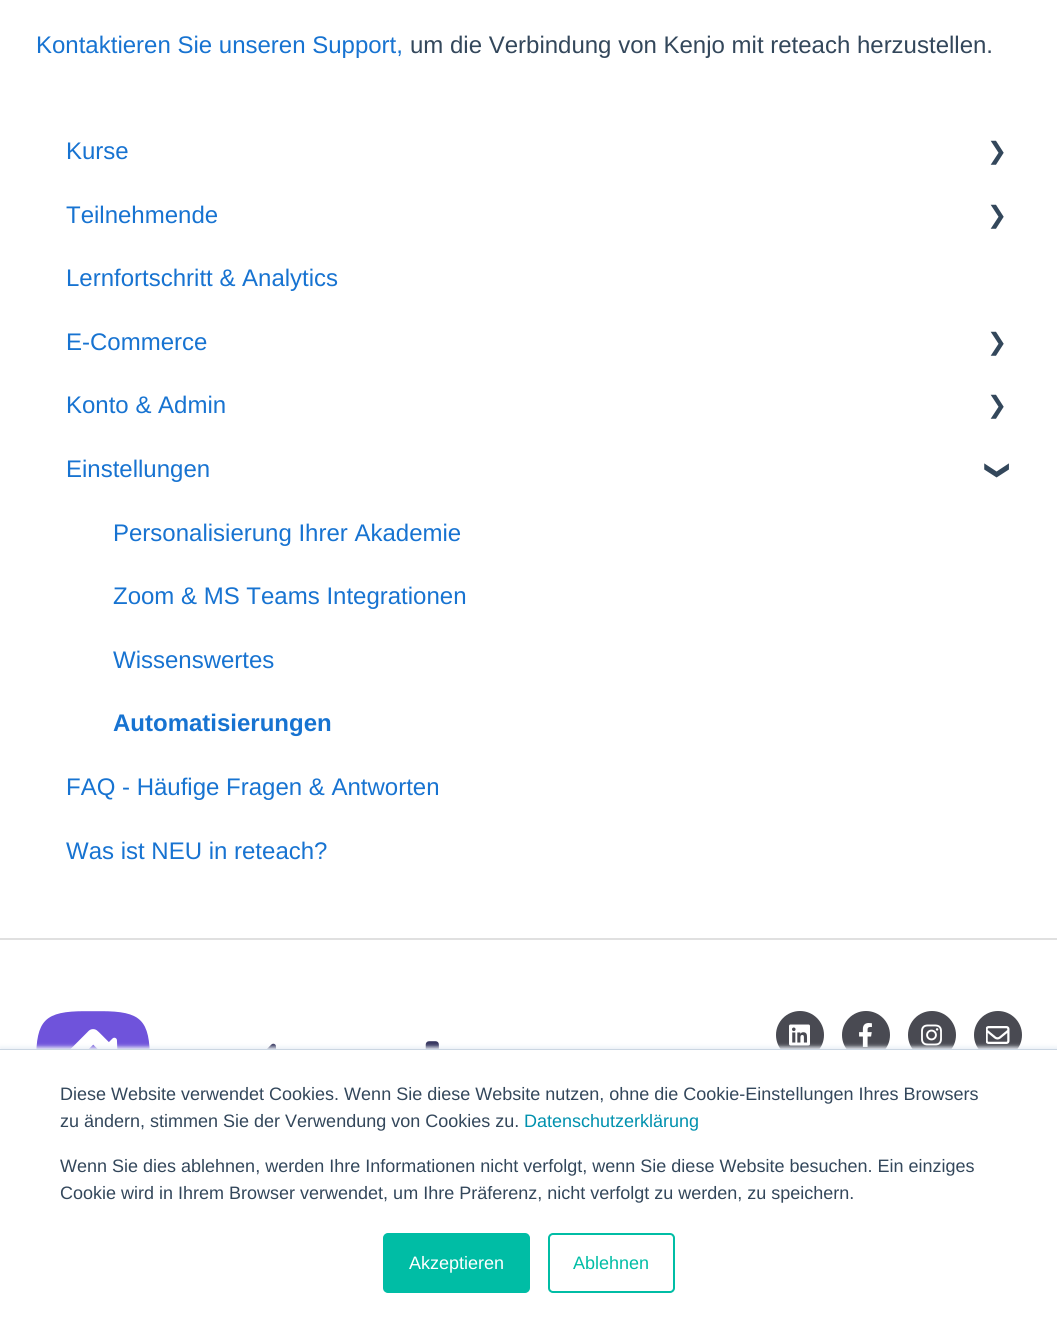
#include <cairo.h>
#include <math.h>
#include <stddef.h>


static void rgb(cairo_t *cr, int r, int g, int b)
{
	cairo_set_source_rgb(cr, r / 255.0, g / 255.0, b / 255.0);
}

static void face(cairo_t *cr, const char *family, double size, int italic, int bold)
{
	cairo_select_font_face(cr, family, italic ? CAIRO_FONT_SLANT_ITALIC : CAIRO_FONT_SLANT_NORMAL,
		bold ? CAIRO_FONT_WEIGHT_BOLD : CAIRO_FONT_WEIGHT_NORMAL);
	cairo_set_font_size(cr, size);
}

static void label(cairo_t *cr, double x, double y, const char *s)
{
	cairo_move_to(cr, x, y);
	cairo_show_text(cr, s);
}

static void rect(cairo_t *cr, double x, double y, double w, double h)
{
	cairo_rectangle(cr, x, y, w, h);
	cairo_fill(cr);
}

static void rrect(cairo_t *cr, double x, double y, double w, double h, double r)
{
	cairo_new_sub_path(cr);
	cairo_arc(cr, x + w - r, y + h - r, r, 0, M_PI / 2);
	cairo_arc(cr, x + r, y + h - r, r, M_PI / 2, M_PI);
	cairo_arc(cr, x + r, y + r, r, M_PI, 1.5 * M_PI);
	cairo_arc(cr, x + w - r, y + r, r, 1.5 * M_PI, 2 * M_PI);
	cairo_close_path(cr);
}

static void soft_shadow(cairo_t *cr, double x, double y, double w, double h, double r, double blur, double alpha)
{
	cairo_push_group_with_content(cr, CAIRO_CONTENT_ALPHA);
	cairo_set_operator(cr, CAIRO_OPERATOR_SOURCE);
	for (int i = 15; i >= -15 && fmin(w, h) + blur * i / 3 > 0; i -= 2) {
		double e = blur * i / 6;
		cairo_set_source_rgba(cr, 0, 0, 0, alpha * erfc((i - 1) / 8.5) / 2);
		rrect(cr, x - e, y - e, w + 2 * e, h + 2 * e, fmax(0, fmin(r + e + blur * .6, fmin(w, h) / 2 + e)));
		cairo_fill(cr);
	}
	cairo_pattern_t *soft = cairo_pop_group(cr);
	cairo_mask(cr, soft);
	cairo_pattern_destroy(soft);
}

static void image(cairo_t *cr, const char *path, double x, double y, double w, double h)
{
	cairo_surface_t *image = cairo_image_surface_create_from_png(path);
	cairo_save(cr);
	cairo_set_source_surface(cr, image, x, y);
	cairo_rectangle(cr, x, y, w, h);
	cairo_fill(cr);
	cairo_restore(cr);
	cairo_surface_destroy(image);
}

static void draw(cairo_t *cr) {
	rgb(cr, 255, 255, 255);
	cairo_paint(cr);
	face(cr, "Liberation Sans", 24, 0, 0);
	rgb(cr, 23, 115, 209);
	label(cr, 36, 53, "Kontaktieren Sie unseren Support,");
	rgb(cr, 51, 71, 91);
	label(cr, 410, 53, "um die Verbindung von Kenjo mit reteach herzustellen.");
	rgb(cr, 23, 115, 209);
	label(cr, 66, 159, "Kurse");
	face(cr, "DejaVu Sans", 24, 0, 0);
	rgb(cr, 51, 71, 91);
	label(cr, 987, 159, "❯");
	face(cr, "Liberation Sans", 24, 0, 0);
	rgb(cr, 23, 115, 209);
	label(cr, 66, 223, "Teilnehmende");
	face(cr, "DejaVu Sans", 24, 0, 0);
	rgb(cr, 51, 71, 91);
	label(cr, 987, 223, "❯");
	face(cr, "Liberation Sans", 24, 0, 0);
	rgb(cr, 23, 115, 209);
	label(cr, 66, 286, "Lernfortschritt & Analytics");
	label(cr, 66, 350, "E-Commerce");
	face(cr, "DejaVu Sans", 24, 0, 0);
	rgb(cr, 51, 71, 91);
	label(cr, 987, 350, "❯");
	face(cr, "Liberation Sans", 24, 0, 0);
	rgb(cr, 23, 115, 209);
	label(cr, 66, 413, "Konto & Admin");
	face(cr, "DejaVu Sans", 24, 0, 0);
	rgb(cr, 51, 71, 91);
	label(cr, 987, 413, "❯");
	face(cr, "Liberation Sans", 24, 0, 0);
	rgb(cr, 23, 115, 209);
	label(cr, 66, 477, "Einstellungen");
	face(cr, "DejaVu Sans", 24, 0, 1);
	rgb(cr, 51, 71, 91);
	cairo_save(cr);
	cairo_translate(cr, 990, 460);
	cairo_rotate(cr, 90 * M_PI / 180);
	label(cr, 0, 0, "❯");
	cairo_restore(cr);
	face(cr, "Liberation Sans", 24, 0, 0);
	rgb(cr, 23, 115, 209);
	label(cr, 113, 541, "Personalisierung Ihrer Akademie");
	label(cr, 113, 604, "Zoom & MS Teams Integrationen");
	label(cr, 113, 668, "Wissenswertes");
	face(cr, "Liberation Sans", 24, 0, 1);
	label(cr, 113, 731, "Automatisierungen");
	face(cr, "Liberation Sans", 24, 0, 0);
	label(cr, 66, 795, "FAQ - Häufige Fragen & Antworten");
	label(cr, 66, 859, "Was ist NEU in reteach?");
	rgb(cr, 224, 224, 224);
	rect(cr, 0, 938, 1057, 2);
	image(cr, "image0.png", 36, 1011, 403, 38);
	rgb(cr, 73, 74, 82);
	cairo_arc(cr, 800, 1035, 24, 0, 2 * M_PI);
	cairo_fill(cr);
	image(cr, "image1.png", 789, 1024, 21, 22);
	cairo_arc(cr, 866, 1035, 24, 0, 2 * M_PI);
	cairo_fill(cr);
	image(cr, "image2.png", 859, 1023, 13, 24);
	cairo_arc(cr, 932, 1035, 24, 0, 2 * M_PI);
	cairo_fill(cr);
	image(cr, "image3.png", 921, 1024, 21, 22);
	cairo_arc(cr, 998, 1035, 24, 0, 2 * M_PI);
	cairo_fill(cr);
	image(cr, "image4.png", 986, 1026, 24, 18);
	rgb(cr, 234, 240, 246);
	soft_shadow(cr, 0, 1047, 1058, 284, 0, 2, 1);
	rgb(cr, 203, 214, 226);
	rect(cr, 0, 1049, 1057, 1);
	rgb(cr, 255, 255, 255);
	rect(cr, 0, 1050, 1057, 282);
	face(cr, "Liberation Sans", 18, 0, 0);
	rgb(cr, 51, 71, 91);
	label(cr, 60, 1100, "Diese Website verwendet Cookies. Wenn Sie diese Website nutzen, ohne die Cookie-Einstellungen Ihres Browsers");
	label(cr, 60, 1127, "zu ändern, stimmen Sie der Verwendung von Cookies zu.");
	rgb(cr, 0, 145, 174);
	label(cr, 524, 1127, "Datenschutzerklärung");
	rgb(cr, 51, 71, 91);
	label(cr, 60, 1172, "Wenn Sie dies ablehnen, werden Ihre Informationen nicht verfolgt, wenn Sie diese Website besuchen. Ein einziges");
	label(cr, 60, 1199, "Cookie wird in Ihrem Browser verwendet, um Ihre Präferenz, nicht verfolgt zu werden, zu speichern.");
	rgb(cr, 0, 189, 165);
	rrect(cr, 384, 1234, 145, 58, 4);
	cairo_fill_preserve(cr);
	cairo_stroke(cr);
	rgb(cr, 255, 255, 255);
	label(cr, 409, 1269, "Akzeptieren");
	rrect(cr, 549, 1234, 125, 58, 4);
	rgb(cr, 0, 189, 165);
	cairo_stroke(cr);
	label(cr, 573, 1269, "Ablehnen");
}

int main(void) {
	cairo_surface_t *surface = cairo_image_surface_create(CAIRO_FORMAT_RGB24, 1057, 1332);
	cairo_t *cr = cairo_create(surface);
	cairo_font_options_t *options = cairo_font_options_create();
	cairo_font_options_set_hint_metrics(options, CAIRO_HINT_METRICS_OFF);
	cairo_font_options_set_hint_style(options, CAIRO_HINT_STYLE_NONE);
	cairo_set_font_options(cr, options);
	cairo_set_miter_limit(cr, 4);
	draw(cr);
	cairo_surface_write_to_png(surface, "render.png");
	cairo_font_options_destroy(options);
	cairo_destroy(cr);
	cairo_surface_destroy(surface);
	return 0;
}
